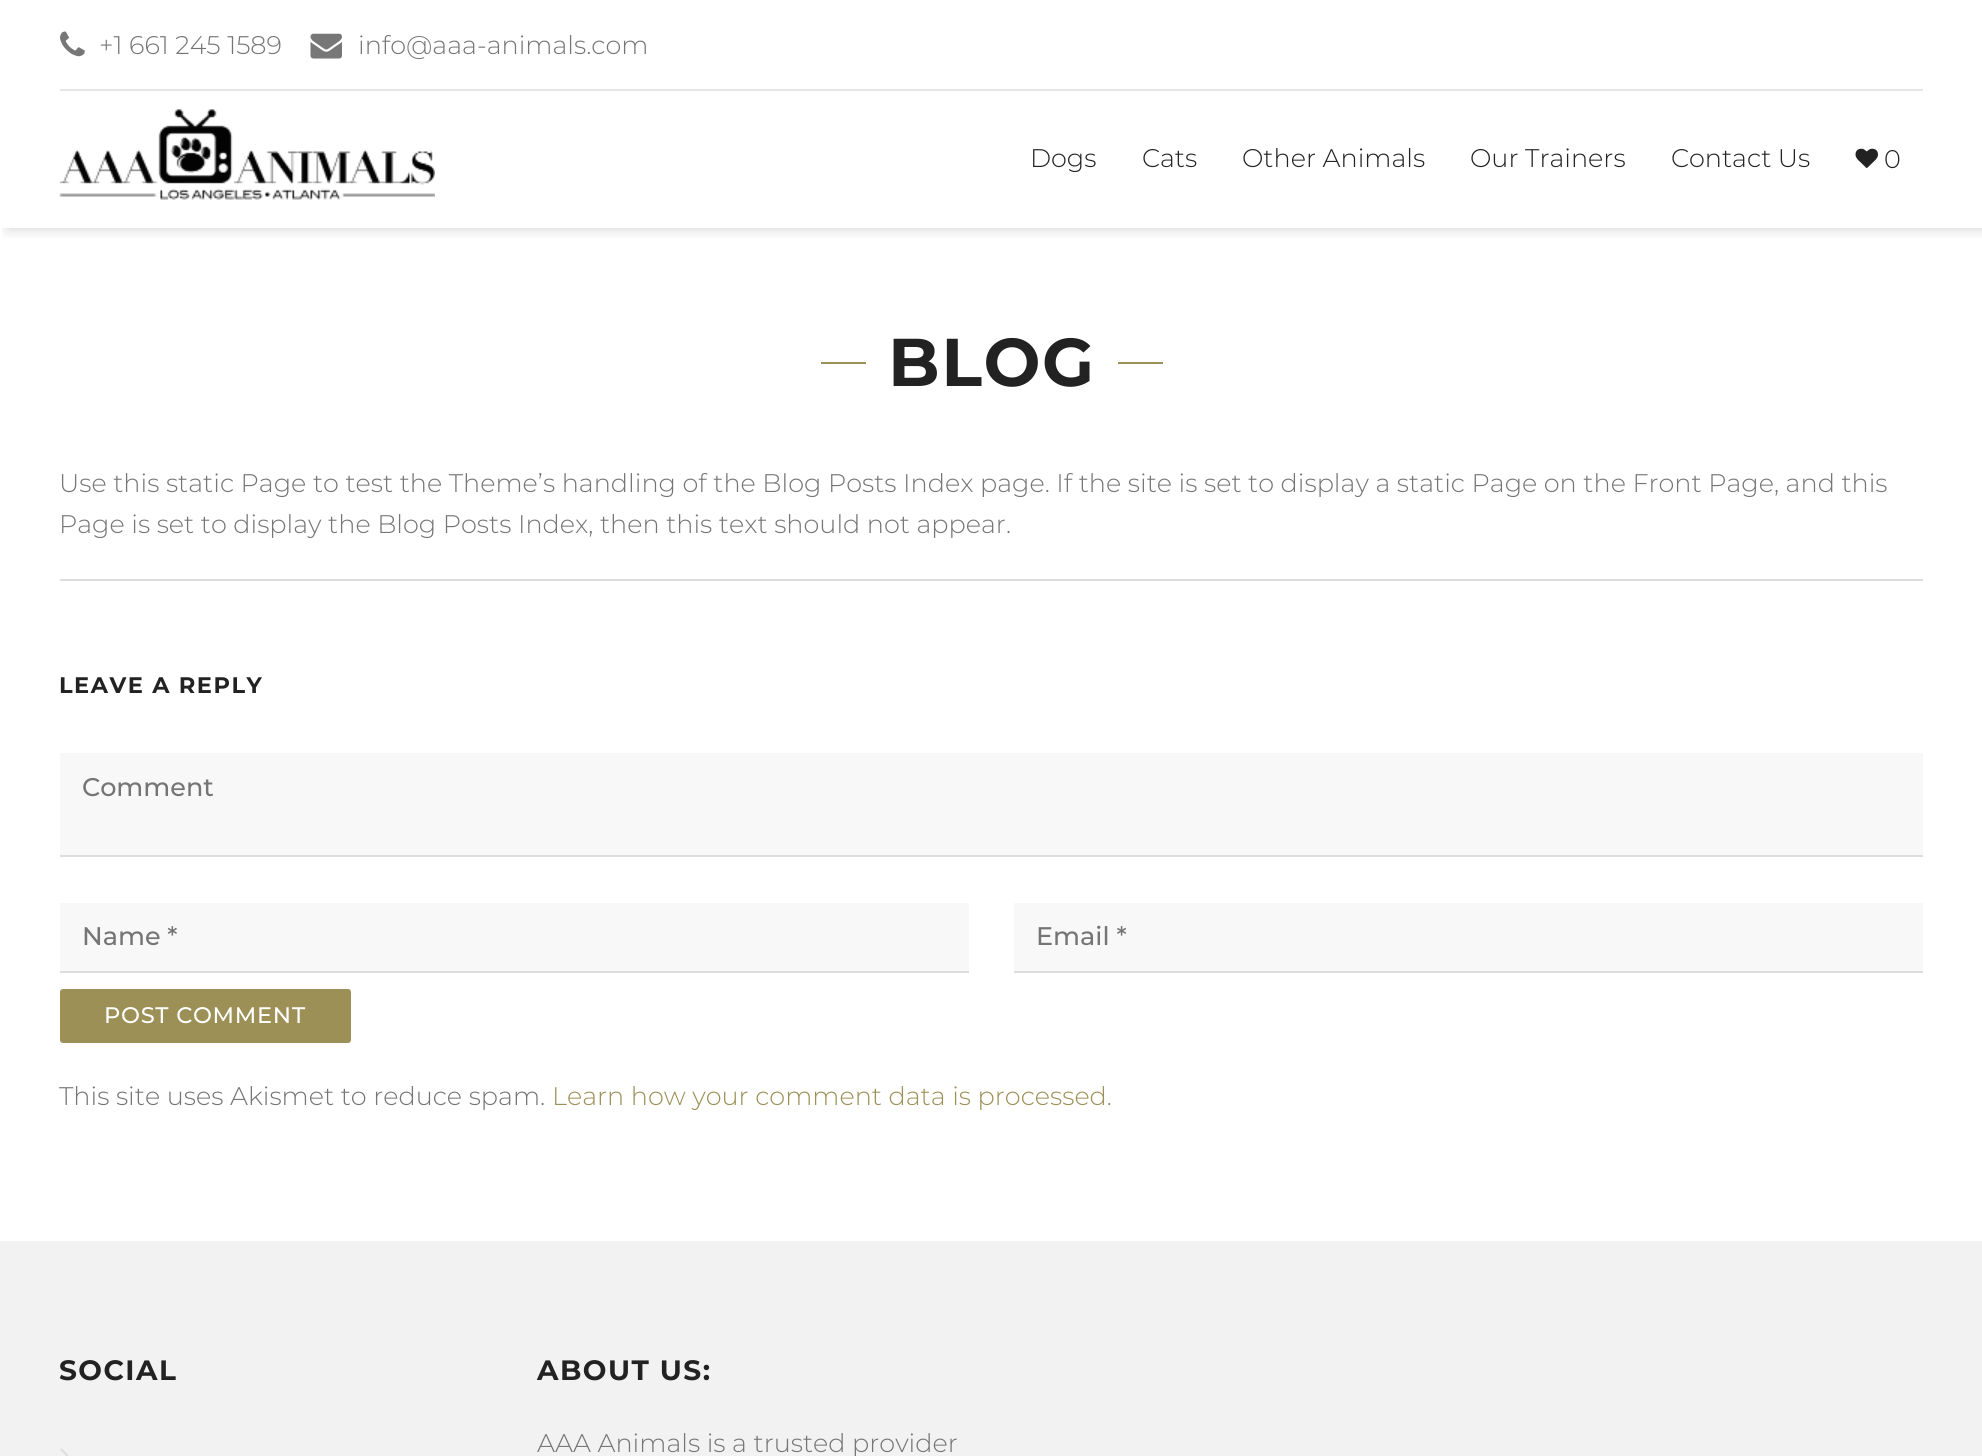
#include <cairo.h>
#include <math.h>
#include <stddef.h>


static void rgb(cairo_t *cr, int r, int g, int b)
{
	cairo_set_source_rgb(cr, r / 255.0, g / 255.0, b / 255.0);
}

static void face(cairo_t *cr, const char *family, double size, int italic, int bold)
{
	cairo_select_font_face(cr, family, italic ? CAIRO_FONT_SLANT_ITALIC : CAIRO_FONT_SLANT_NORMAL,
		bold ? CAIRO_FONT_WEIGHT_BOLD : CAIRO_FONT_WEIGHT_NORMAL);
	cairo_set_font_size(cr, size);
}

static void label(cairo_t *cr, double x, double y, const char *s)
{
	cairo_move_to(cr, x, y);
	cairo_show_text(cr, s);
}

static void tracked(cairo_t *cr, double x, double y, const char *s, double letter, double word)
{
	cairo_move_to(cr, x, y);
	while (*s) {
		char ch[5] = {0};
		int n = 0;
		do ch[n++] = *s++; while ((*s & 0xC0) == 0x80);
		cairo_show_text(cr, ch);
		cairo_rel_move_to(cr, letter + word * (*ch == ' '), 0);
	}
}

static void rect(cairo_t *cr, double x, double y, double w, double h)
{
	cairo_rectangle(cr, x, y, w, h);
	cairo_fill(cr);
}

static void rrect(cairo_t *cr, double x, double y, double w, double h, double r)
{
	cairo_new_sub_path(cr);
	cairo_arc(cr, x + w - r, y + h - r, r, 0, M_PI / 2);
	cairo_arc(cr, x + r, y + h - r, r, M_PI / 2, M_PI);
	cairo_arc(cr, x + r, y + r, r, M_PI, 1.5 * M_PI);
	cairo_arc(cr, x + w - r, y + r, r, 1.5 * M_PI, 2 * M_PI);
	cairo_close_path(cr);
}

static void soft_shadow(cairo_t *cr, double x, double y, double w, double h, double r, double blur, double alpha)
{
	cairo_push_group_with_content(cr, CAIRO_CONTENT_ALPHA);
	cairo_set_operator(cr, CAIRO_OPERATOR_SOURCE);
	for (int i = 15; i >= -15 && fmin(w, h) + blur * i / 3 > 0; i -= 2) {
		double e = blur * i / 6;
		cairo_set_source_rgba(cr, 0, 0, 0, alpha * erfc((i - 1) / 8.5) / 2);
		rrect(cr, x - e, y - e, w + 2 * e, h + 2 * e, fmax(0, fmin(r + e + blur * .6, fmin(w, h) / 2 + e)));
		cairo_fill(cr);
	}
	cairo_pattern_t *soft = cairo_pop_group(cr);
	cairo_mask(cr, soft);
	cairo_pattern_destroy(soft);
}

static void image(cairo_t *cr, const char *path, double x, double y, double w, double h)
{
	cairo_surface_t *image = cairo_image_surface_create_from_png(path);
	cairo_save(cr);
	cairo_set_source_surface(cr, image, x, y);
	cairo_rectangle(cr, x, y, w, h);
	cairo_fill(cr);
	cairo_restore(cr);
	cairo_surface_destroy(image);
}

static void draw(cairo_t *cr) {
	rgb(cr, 255, 255, 255);
	cairo_paint(cr);
	cairo_save(cr);
	cairo_rectangle(cr, 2, 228, 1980, 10);
	cairo_clip(cr);
	rgb(cr, 0, 0, 0);
	soft_shadow(cr, 8, 0, 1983, 228, 0, 7.5, 0.2);
	cairo_restore(cr);
	rgb(cr, 230, 230, 230);
	rect(cr, 60, 89, 1863, 2);
	image(cr, "image0.png", 60, 31, 25, 26);
	face(cr, "Montserrat Light", 25.5, 0, 0);
	rgb(cr, 117, 117, 117);
	label(cr, 99, 54, "+1 661 245 1589");
	image(cr, "image1.png", 310, 33, 32, 26);
	label(cr, 358, 54, "info@aaa-animals.com");
	image(cr, "image2.png", 59, 109, 376, 91);
	rgb(cr, 34, 34, 34);
	label(cr, 1030, 167, "Dogs");
	label(cr, 1142, 167, "Cats");
	label(cr, 1242, 167, "Other Animals");
	label(cr, 1470, 167, "Our Trainers");
	label(cr, 1671, 167, "Contact Us");
	image(cr, "image3.png", 1855, 148, 23, 20);
	label(cr, 1884, 168, "0");
	rgb(cr, 156, 144, 87);
	rect(cr, 821, 362, 45, 2);
	face(cr, "Montserrat", 67.5, 0, 1);
	rgb(cr, 34, 34, 34);
	tracked(cr, 888, 386, "BLOG", 1.5, 0);
	rgb(cr, 156, 144, 87);
	rect(cr, 1118, 362, 45, 2);
	face(cr, "Montserrat Light", 25.5, 0, 0);
	rgb(cr, 117, 117, 117);
	label(cr, 59, 492, "Use this static Page to test the Theme’s handling of the Blog Posts Index page. If the site is set to display a static Page on the Front Page, and this");
	label(cr, 59, 533, "Page is set to display the Blog Posts Index, then this text should not appear.");
	rgb(cr, 221, 221, 221);
	rect(cr, 60, 579, 1863, 2);
	face(cr, "Montserrat", 22.5, 0, 1);
	rgb(cr, 34, 34, 34);
	tracked(cr, 59, 693, "LEAVE A REPLY", 1.5, 0);
	rgb(cr, 248, 248, 248);
	rect(cr, 60, 753, 1863, 102);
	rgb(cr, 221, 221, 221);
	rect(cr, 60, 855, 1863, 2);
	face(cr, "Montserrat Thin", 25.5, 0, 0);
	rgb(cr, 117, 117, 117);
	label(cr, 82, 796, "Comment");
	rgb(cr, 248, 248, 248);
	rect(cr, 60, 903, 909, 68);
	rgb(cr, 221, 221, 221);
	rect(cr, 60, 971, 909, 2);
	rgb(cr, 117, 117, 117);
	label(cr, 82, 945, "Name *");
	rgb(cr, 248, 248, 248);
	rect(cr, 1014, 903, 909, 68);
	rgb(cr, 221, 221, 221);
	rect(cr, 1014, 971, 909, 2);
	rgb(cr, 117, 117, 117);
	label(cr, 1036, 945, "Email *");
	rgb(cr, 156, 144, 87);
	rrect(cr, 60, 989, 291, 54, 3);
	cairo_fill(cr);
	face(cr, "Montserrat Thin", 22.5, 0, 0);
	rgb(cr, 255, 255, 255);
	tracked(cr, 104, 1023, "POST COMMENT", 0.75, 0);
	face(cr, "Montserrat Light", 25.5, 0, 0);
	rgb(cr, 117, 117, 117);
	label(cr, 59, 1105, "This site uses Akismet to reduce spam.");
	rgb(cr, 156, 144, 87);
	label(cr, 552, 1105, "Learn how your comment data is processed.");
	rgb(cr, 242, 242, 242);
	rect(cr, 0, 1241, 1982, 215);
	face(cr, "Montserrat", 28, 0, 1);
	rgb(cr, 34, 34, 34);
	tracked(cr, 59, 1380, "SOCIAL", 1.5, 0);
	image(cr, "image4.png", 60, 1448, 9, 8);
	tracked(cr, 537, 1380, "ABOUT US:", 1.5, 0);
	face(cr, "Montserrat Light", 25.5, 0, 0);
	rgb(cr, 117, 117, 117);
	label(cr, 537, 1452, "AAA Animals is a trusted provider");
}

int main(void) {
	cairo_surface_t *surface = cairo_image_surface_create(CAIRO_FORMAT_RGB24, 1982, 1456);
	cairo_t *cr = cairo_create(surface);
	cairo_font_options_t *options = cairo_font_options_create();
	cairo_font_options_set_hint_metrics(options, CAIRO_HINT_METRICS_OFF);
	cairo_font_options_set_hint_style(options, CAIRO_HINT_STYLE_NONE);
	cairo_set_font_options(cr, options);
	cairo_set_miter_limit(cr, 4);
	draw(cr);
	cairo_surface_write_to_png(surface, "render.png");
	cairo_font_options_destroy(options);
	cairo_destroy(cr);
	cairo_surface_destroy(surface);
	return 0;
}
